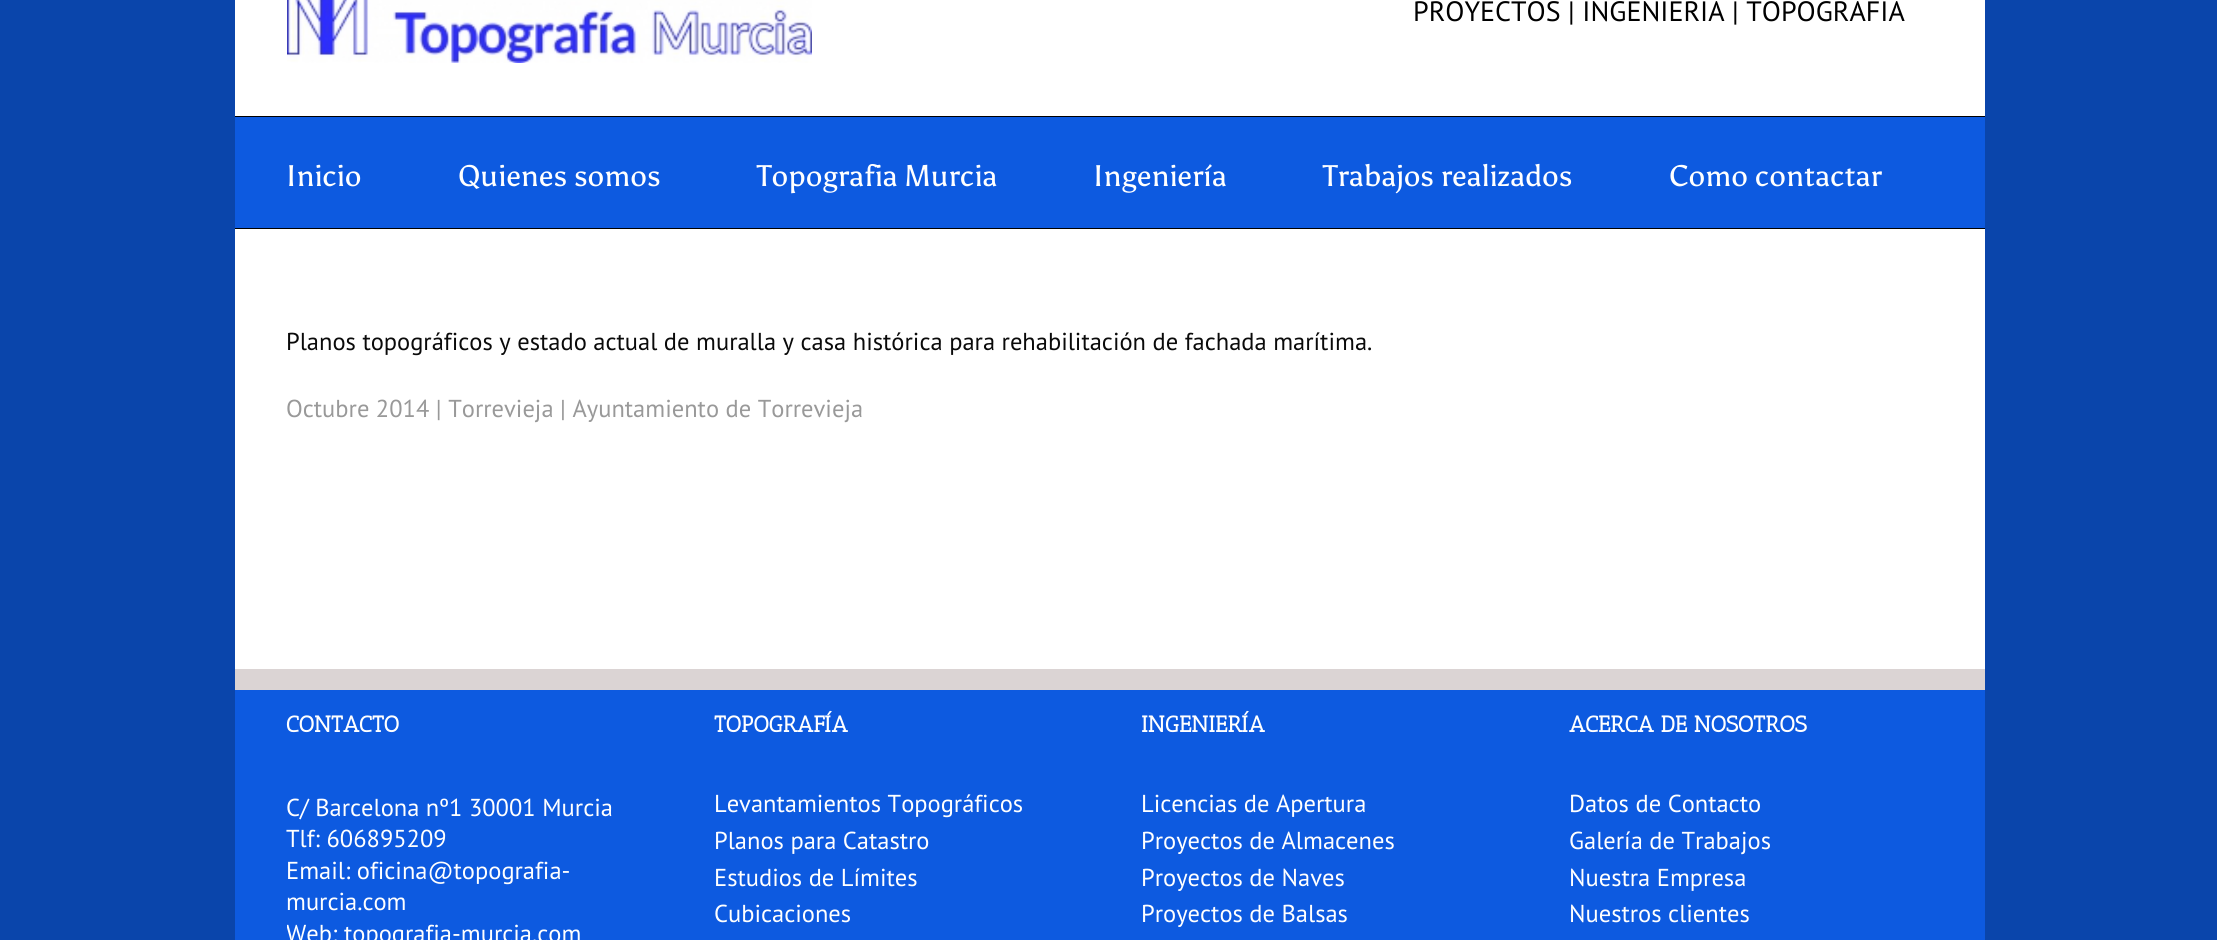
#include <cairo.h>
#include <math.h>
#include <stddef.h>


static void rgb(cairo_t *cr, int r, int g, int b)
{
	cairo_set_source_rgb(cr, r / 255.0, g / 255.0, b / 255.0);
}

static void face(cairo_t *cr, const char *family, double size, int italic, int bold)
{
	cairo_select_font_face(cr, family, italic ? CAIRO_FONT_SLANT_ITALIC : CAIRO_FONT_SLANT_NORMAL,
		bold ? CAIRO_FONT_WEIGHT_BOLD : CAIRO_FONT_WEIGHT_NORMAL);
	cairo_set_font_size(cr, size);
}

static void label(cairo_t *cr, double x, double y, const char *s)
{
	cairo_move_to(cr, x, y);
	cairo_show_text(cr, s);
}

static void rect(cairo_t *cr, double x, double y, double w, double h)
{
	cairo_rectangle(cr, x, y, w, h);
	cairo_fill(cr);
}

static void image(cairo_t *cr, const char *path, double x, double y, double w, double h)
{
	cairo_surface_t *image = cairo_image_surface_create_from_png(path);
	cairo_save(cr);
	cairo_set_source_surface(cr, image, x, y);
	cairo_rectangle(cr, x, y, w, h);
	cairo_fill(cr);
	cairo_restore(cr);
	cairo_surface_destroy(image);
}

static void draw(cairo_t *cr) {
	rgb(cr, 10, 69, 171);
	cairo_paint(cr);
	rgb(cr, 255, 255, 255);
	rect(cr, 235, 0, 1750, 116);
	rgb(cr, 0, 0, 0);
	rect(cr, 235, 116, 1750, 1);
	image(cr, "image0.png", 287, 0, 525, 63);
	face(cr, "PT Sans", 28, 0, 0);
	label(cr, 1413, 21, "PROYECTOS | INGENIERÍA | TOPOGRAFÍA");
	rgb(cr, 13, 90, 224);
	rect(cr, 235, 117, 1750, 111);
	rgb(cr, 0, 0, 0);
	rect(cr, 235, 228, 1750, 1);
	face(cr, "Asul", 29.75, 0, 0);
	rgb(cr, 255, 255, 255);
	label(cr, 286, 186, "Inicio");
	label(cr, 458, 186, "Quienes somos");
	label(cr, 757, 186, "Topografia Murcia");
	label(cr, 1093, 186, "Ingeniería");
	label(cr, 1323, 186, "Trabajos realizados");
	label(cr, 1669, 186, "Como contactar");
	rect(cr, 235, 229, 1750, 440);
	face(cr, "PT Sans", 24.5, 0, 0);
	rgb(cr, 10, 10, 10);
	label(cr, 286, 350, "Planos topográficos y estado actual de muralla y casa histórica para rehabilitación de fachada marítima.");
	rgb(cr, 153, 153, 153);
	label(cr, 286, 417, "Octubre 2014 | Torrevieja | Ayuntamiento de Torrevieja");
	rgb(cr, 13, 90, 224);
	rect(cr, 235, 690, 1750, 250);
	rgb(cr, 219, 212, 212);
	rect(cr, 235, 669, 1750, 21);
	face(cr, "Antic Slab", 22.75, 0, 1);
	rgb(cr, 255, 255, 255);
	label(cr, 286, 732, "CONTACTO");
	face(cr, "PT Sans", 24.5, 0, 0);
	label(cr, 286, 816, "C/ Barcelona nº1 30001 Murcia");
	label(cr, 286, 847, "Tlf: 606895209");
	label(cr, 286, 879, "Email: oficina@topografia-");
	label(cr, 286, 910, "murcia.com");
	cairo_save(cr);
	cairo_rectangle(cr, 287, 707, 1645, 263);
	cairo_clip(cr);
	label(cr, 286, 942, "Web:");
	cairo_restore(cr);
	label(cr, 344, 942, "topografia-murcia.com");
	face(cr, "Antic Slab", 22.75, 0, 1);
	label(cr, 714, 732, "TOPOGRAFÍA");
	face(cr, "PT Sans", 24.5, 0, 0);
	label(cr, 714, 812, "Levantamientos Topográficos");
	label(cr, 714, 849, "Planos para Catastro");
	label(cr, 714, 886, "Estudios de Límites");
	label(cr, 714, 922, "Cubicaciones");
	face(cr, "Antic Slab", 22.75, 0, 1);
	label(cr, 1141, 732, "INGENIERÍA");
	face(cr, "PT Sans", 24.5, 0, 0);
	label(cr, 1141, 812, "Licencias de Apertura");
	label(cr, 1141, 849, "Proyectos de Almacenes");
	label(cr, 1141, 886, "Proyectos de Naves");
	label(cr, 1141, 922, "Proyectos de Balsas");
	face(cr, "Antic Slab", 22.75, 0, 1);
	label(cr, 1569, 732, "ACERCA DE NOSOTROS");
	face(cr, "PT Sans", 24.5, 0, 0);
	label(cr, 1569, 812, "Datos de Contacto");
	label(cr, 1569, 849, "Galería de Trabajos");
	label(cr, 1569, 886, "Nuestra Empresa");
	label(cr, 1569, 922, "Nuestros clientes");
}

int main(void) {
	cairo_surface_t *surface = cairo_image_surface_create(CAIRO_FORMAT_RGB24, 2217, 940);
	cairo_t *cr = cairo_create(surface);
	cairo_font_options_t *options = cairo_font_options_create();
	cairo_font_options_set_hint_metrics(options, CAIRO_HINT_METRICS_OFF);
	cairo_font_options_set_hint_style(options, CAIRO_HINT_STYLE_NONE);
	cairo_set_font_options(cr, options);
	cairo_set_miter_limit(cr, 4);
	draw(cr);
	cairo_surface_write_to_png(surface, "render.png");
	cairo_font_options_destroy(options);
	cairo_destroy(cr);
	cairo_surface_destroy(surface);
	return 0;
}
